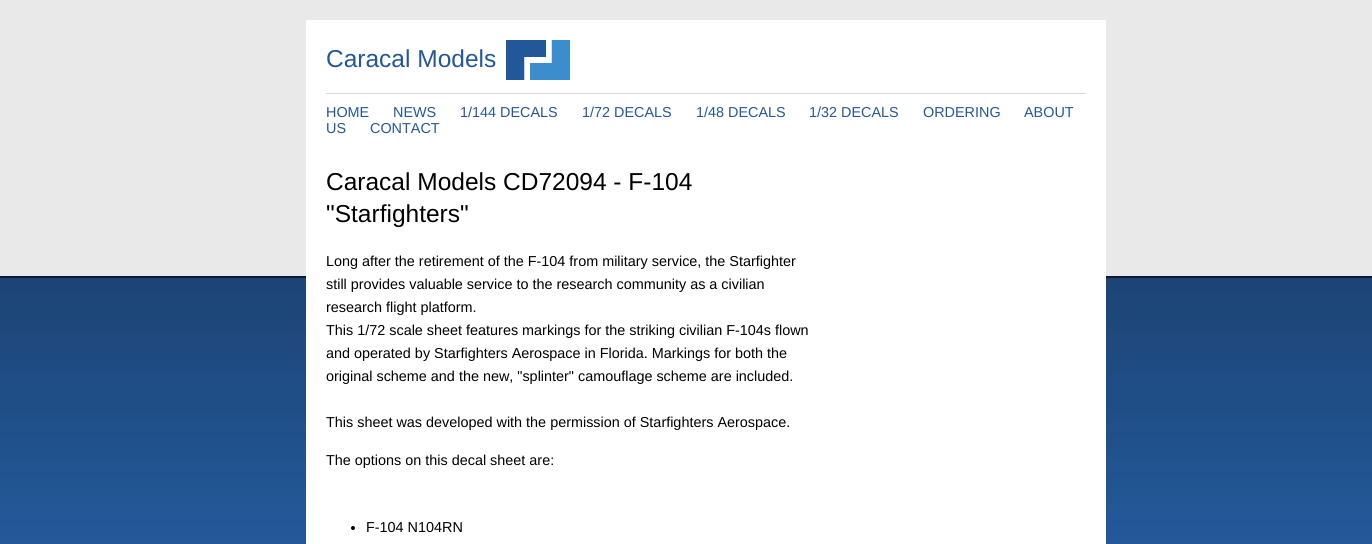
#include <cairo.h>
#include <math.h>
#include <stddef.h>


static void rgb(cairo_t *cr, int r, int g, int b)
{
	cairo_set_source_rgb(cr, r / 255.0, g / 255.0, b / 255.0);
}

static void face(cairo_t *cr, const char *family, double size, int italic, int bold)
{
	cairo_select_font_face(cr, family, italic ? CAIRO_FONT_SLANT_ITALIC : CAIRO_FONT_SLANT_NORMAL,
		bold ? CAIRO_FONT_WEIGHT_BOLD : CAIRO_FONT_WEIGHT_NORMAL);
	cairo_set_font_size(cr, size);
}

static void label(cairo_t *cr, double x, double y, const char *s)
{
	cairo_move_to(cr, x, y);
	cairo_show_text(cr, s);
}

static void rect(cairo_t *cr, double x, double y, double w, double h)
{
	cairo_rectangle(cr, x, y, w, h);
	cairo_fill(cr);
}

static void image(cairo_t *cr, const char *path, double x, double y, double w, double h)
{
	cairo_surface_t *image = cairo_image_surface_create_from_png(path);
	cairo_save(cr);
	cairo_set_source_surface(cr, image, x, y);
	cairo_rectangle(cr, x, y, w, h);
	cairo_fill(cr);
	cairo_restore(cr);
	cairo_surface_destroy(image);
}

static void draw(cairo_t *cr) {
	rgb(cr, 255, 255, 255);
	cairo_paint(cr);
	image(cr, "image0.png", 0, 0, 1372, 544);
	rgb(cr, 255, 255, 255);
	rect(cr, 306, 20, 800, 524);
	image(cr, "image1.png", 506, 40, 64, 40);
	rgb(cr, 218, 218, 218);
	rect(cr, 326, 93, 760, 1);
	face(cr, "Liberation Sans", 24.5, 0, 0);
	rgb(cr, 34, 87, 153);
	label(cr, 326, 67, "Caracal Models");
	face(cr, "Liberation Sans", 14.4, 0, 0);
	label(cr, 326, 117, "HOME");
	label(cr, 393, 117, "NEWS");
	label(cr, 460, 117, "1/144 DECALS");
	label(cr, 582, 117, "1/72 DECALS");
	label(cr, 696, 117, "1/48 DECALS");
	label(cr, 809, 117, "1/32 DECALS");
	label(cr, 923, 117, "ORDERING");
	label(cr, 1024, 117, "ABOUT");
	label(cr, 326, 133, "US");
	label(cr, 370, 133, "CONTACT");
	face(cr, "Liberation Sans", 24.5, 0, 0);
	rgb(cr, 0, 0, 0);
	label(cr, 326, 190, "Caracal Models CD72094 - F-104");
	label(cr, 326, 222, "\"Starfighters\"");
	face(cr, "Liberation Sans", 14.4, 0, 0);
	label(cr, 326, 266, "Long after the retirement of the F-104 from military service, the Starfighter");
	label(cr, 326, 289, "still provides valuable service to the research community as a civilian");
	label(cr, 326, 312, "research flight platform.");
	label(cr, 326, 335, "This 1/72 scale sheet features markings for the striking civilian F-104s flown");
	label(cr, 326, 358, "and operated by Starfighters Aerospace in Florida. Markings for both the");
	label(cr, 326, 381, "original scheme and the new, \"splinter\" camouflage scheme are included.");
	label(cr, 326, 427, "This sheet was developed with the permission of Starfighters Aerospace.");
	label(cr, 326, 465, "The options on this decal sheet are:");
	cairo_new_path(cr);
	cairo_arc(cr, 353, 528, 2, 0, 2 * M_PI);
	cairo_fill(cr);
	label(cr, 366, 532, "F-104 N104RN");
}

int main(void) {
	cairo_surface_t *surface = cairo_image_surface_create(CAIRO_FORMAT_RGB24, 1372, 544);
	cairo_t *cr = cairo_create(surface);
	cairo_font_options_t *options = cairo_font_options_create();
	cairo_font_options_set_hint_metrics(options, CAIRO_HINT_METRICS_OFF);
	cairo_font_options_set_hint_style(options, CAIRO_HINT_STYLE_NONE);
	cairo_set_font_options(cr, options);
	cairo_set_miter_limit(cr, 4);
	draw(cr);
	cairo_surface_write_to_png(surface, "render.png");
	cairo_font_options_destroy(options);
	cairo_destroy(cr);
	cairo_surface_destroy(surface);
	return 0;
}
